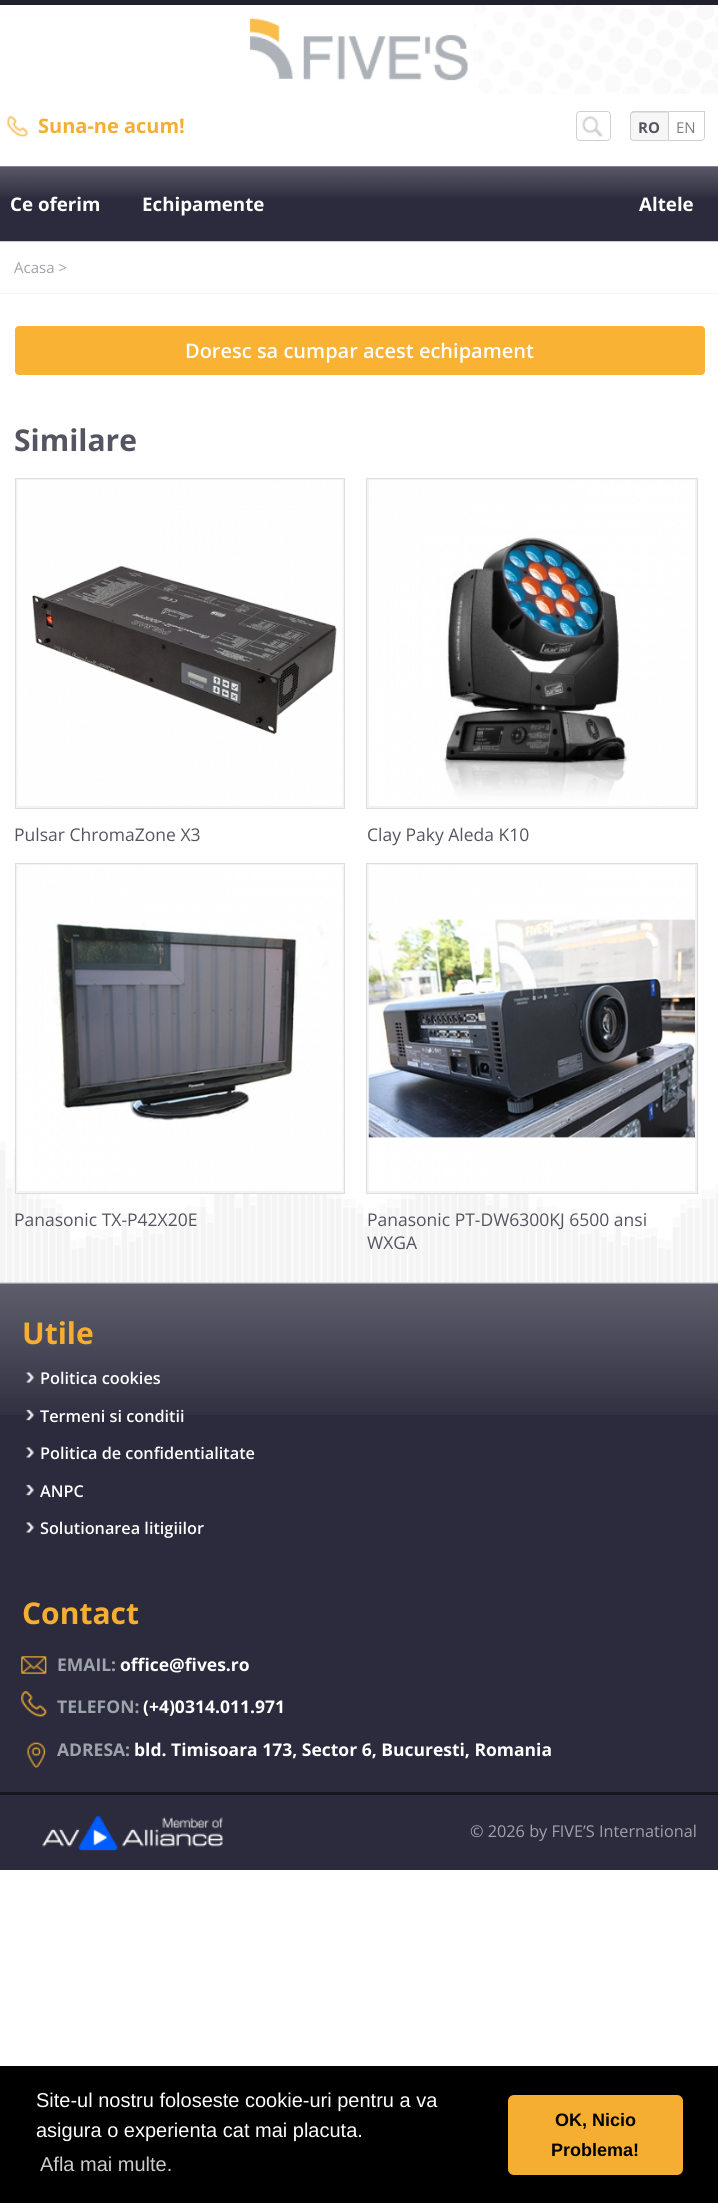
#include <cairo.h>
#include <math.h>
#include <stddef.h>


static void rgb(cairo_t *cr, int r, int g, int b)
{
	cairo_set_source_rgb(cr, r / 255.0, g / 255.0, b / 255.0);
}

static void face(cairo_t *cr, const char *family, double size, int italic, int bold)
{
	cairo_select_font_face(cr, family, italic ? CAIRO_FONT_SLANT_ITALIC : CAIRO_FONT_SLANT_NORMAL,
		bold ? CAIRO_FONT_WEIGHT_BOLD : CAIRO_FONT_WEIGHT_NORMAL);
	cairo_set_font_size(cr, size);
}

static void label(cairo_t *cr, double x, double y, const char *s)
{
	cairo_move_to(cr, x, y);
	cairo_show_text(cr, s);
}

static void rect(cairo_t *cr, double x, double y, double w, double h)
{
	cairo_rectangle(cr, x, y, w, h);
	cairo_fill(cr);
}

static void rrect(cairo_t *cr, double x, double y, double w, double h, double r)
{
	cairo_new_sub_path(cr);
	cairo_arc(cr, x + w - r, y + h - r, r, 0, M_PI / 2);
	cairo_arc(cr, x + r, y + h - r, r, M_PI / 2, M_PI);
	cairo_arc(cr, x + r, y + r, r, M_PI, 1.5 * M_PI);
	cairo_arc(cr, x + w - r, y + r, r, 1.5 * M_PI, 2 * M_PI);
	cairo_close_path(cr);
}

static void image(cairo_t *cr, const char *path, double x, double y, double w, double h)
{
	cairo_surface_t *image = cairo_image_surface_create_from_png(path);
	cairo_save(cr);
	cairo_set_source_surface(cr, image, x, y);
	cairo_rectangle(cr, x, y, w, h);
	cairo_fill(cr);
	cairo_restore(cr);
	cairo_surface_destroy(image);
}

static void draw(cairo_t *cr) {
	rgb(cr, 255, 255, 255);
	cairo_paint(cr);
	image(cr, "image0.png", 473, 5, 245, 89);
	rgb(cr, 32, 32, 47);
	rect(cr, 0, 0, 718, 5);
	image(cr, "image1.png", 249, 18, 219, 63);
	image(cr, "image2.png", 7, 116, 21, 21);
	face(cr, "Open Sans", 20, 0, 1);
	rgb(cr, 245, 174, 50);
	label(cr, 38, 133, "Suna-ne acum!");
	image(cr, "image3.png", 582, 116, 21, 21);
	rrect(cr, 576.5, 111.5, 34, 29, 3.5);
	rgb(cr, 206, 209, 212);
	cairo_set_line_width(cr, 1);
	cairo_stroke(cr);
	rgb(cr, 246, 246, 247);
	cairo_new_path(cr);
	cairo_move_to(cr, 634, 111);
	cairo_line_to(cr, 668, 111);
	cairo_line_to(cr, 668, 141);
	cairo_line_to(cr, 634, 141);
	cairo_curve_to(cr, 632, 141, 630, 139, 630, 137);
	cairo_line_to(cr, 630, 115);
	cairo_curve_to(cr, 630, 113, 632, 111, 634, 111);
	cairo_close_path(cr);
	cairo_fill(cr);
	rgb(cr, 206, 209, 212);
	cairo_set_fill_rule(cr, CAIRO_FILL_RULE_EVEN_ODD);
	cairo_new_path(cr);
	cairo_move_to(cr, 634, 111);
	cairo_line_to(cr, 667.5, 111);
	cairo_line_to(cr, 667.5, 141);
	cairo_line_to(cr, 634, 141);
	cairo_curve_to(cr, 631.5, 141, 630, 139.5, 630, 137.5);
	cairo_line_to(cr, 630, 115);
	cairo_curve_to(cr, 630, 113, 631.5, 111, 634, 111);
	cairo_close_path(cr);
	cairo_move_to(cr, 634, 112.5);
	cairo_line_to(cr, 667.5, 112.5);
	cairo_line_to(cr, 667.5, 140);
	cairo_line_to(cr, 634, 140);
	cairo_curve_to(cr, 632.5, 140, 631, 139, 631, 137.5);
	cairo_line_to(cr, 631, 115);
	cairo_curve_to(cr, 631, 113.5, 632.5, 112.5, 634, 112.5);
	cairo_close_path(cr);
	cairo_fill(cr);
	face(cr, "Open Sans", 15, 0, 1);
	rgb(cr, 85, 85, 98);
	label(cr, 638, 133, "RO");
	cairo_new_path(cr);
	cairo_move_to(cr, 668.5, 111.5);
	cairo_line_to(cr, 704.5, 111.5);
	cairo_line_to(cr, 704.5, 137);
	cairo_curve_to(cr, 704.5, 139, 703, 140.5, 701, 140.5);
	cairo_line_to(cr, 668.5, 140.5);
	cairo_close_path(cr);
	rgb(cr, 206, 209, 212);
	cairo_stroke(cr);
	face(cr, "Open Sans", 15, 0, 0);
	rgb(cr, 124, 124, 135);
	label(cr, 676, 133, "EN");
	image(cr, "image4.png", 0, 166, 718, 76);
	face(cr, "Open Sans", 18.75, 0, 1);
	rgb(cr, 255, 255, 255);
	label(cr, 10, 211, "Ce oferim");
	label(cr, 142, 211, "Echipamente");
	label(cr, 639, 211, "Altele");
	rgb(cr, 246, 246, 246);
	rect(cr, 0, 293, 718, 1);
	face(cr, "Open Sans", 15, 0, 0);
	rgb(cr, 157, 163, 170);
	label(cr, 14, 273, "Acasa >");
	rgb(cr, 249, 178, 52);
	rrect(cr, 15.5, 326.5, 689, 48, 3.5);
	cairo_fill_preserve(cr);
	cairo_stroke(cr);
	face(cr, "Open Sans SemiBold", 20, 0, 0);
	rgb(cr, 255, 255, 255);
	label(cr, 185, 358, "Doresc sa cumpar acest echipament");
	image(cr, "image5.png", 0, 1141, 718, 142);
	face(cr, "Open Sans", 30, 0, 1);
	rgb(cr, 85, 85, 98);
	label(cr, 14, 451, "Similare");
	rgb(cr, 243, 243, 243);
	cairo_rectangle(cr, 15.5, 478.5, 329, 330);
	cairo_fill_preserve(cr);
	rgb(cr, 220, 220, 220);
	cairo_stroke(cr);
	image(cr, "image6.png", 17, 480, 326, 326);
	face(cr, "Open Sans", 17.5, 0, 0);
	rgb(cr, 85, 85, 98);
	label(cr, 14, 841, "Pulsar ChromaZone X3");
	rgb(cr, 243, 243, 243);
	cairo_rectangle(cr, 366.5, 478.5, 331, 330);
	cairo_fill_preserve(cr);
	rgb(cr, 220, 220, 220);
	cairo_stroke(cr);
	image(cr, "image7.png", 369, 480, 326, 326);
	rgb(cr, 85, 85, 98);
	label(cr, 367, 841, "Clay Paky Aleda K10");
	rgb(cr, 243, 243, 243);
	cairo_rectangle(cr, 15.5, 863.5, 329, 330);
	cairo_fill_preserve(cr);
	rgb(cr, 220, 220, 220);
	cairo_stroke(cr);
	image(cr, "image8.png", 17, 865, 326, 326);
	rgb(cr, 85, 85, 98);
	label(cr, 14, 1226, "Panasonic TX-P42X20E");
	rgb(cr, 243, 243, 243);
	cairo_rectangle(cr, 366.5, 863.5, 331, 330);
	cairo_fill_preserve(cr);
	rgb(cr, 220, 220, 220);
	cairo_stroke(cr);
	image(cr, "image9.png", 368, 865, 327, 326);
	rgb(cr, 85, 85, 98);
	label(cr, 367, 1226, "Panasonic PT-DW6300KJ 6500 ansi");
	label(cr, 367, 1249, "WXGA");
	rgb(cr, 43, 43, 61);
	rect(cr, 0, 1415, 718, 377);
	image(cr, "image10.png", 0, 1282, 718, 133);
	face(cr, "Open Sans", 30, 0, 1);
	rgb(cr, 245, 174, 50);
	label(cr, 22, 1344, "Utile");
	image(cr, "image11.png", 26, 1372, 8, 11);
	face(cr, "Open Sans SemiBold", 16.25, 0, 0);
	rgb(cr, 255, 255, 255);
	label(cr, 40, 1384, "Politica cookies");
	image(cr, "image12.png", 26, 1409, 8, 12);
	label(cr, 40, 1422, "Termeni si conditii");
	image(cr, "image13.png", 26, 1447, 8, 11);
	label(cr, 40, 1459, "Politica de confidentialitate");
	image(cr, "image14.png", 26, 1484, 8, 12);
	label(cr, 40, 1497, "ANPC");
	image(cr, "image15.png", 26, 1522, 8, 11);
	label(cr, 40, 1534, "Solutionarea litigiilor");
	face(cr, "Open Sans", 30, 0, 1);
	rgb(cr, 245, 174, 50);
	label(cr, 22, 1624, "Contact");
	image(cr, "image16.png", 21, 1656, 26, 18);
	face(cr, "Open Sans", 17.5, 0, 1);
	rgb(cr, 157, 163, 170);
	label(cr, 57, 1671, "EMAIL:");
	rgb(cr, 255, 255, 255);
	label(cr, 120, 1671, "office@fives.ro");
	image(cr, "image17.png", 21, 1691, 26, 26);
	rgb(cr, 157, 163, 170);
	label(cr, 57, 1713, "TELEFON:");
	rgb(cr, 255, 255, 255);
	label(cr, 143, 1713, "(+4)0314.011.971");
	image(cr, "image18.png", 27, 1742, 19, 26);
	rgb(cr, 157, 163, 170);
	label(cr, 57, 1756, "ADRESA:");
	rgb(cr, 255, 255, 255);
	label(cr, 134, 1756, "bld. Timisoara 173, Sector 6, Bucuresti, Romania");
	rgb(cr, 43, 43, 61);
	rect(cr, 0, 1795, 718, 75);
	rgb(cr, 22, 23, 29);
	rect(cr, 0, 1792, 718, 3);
	image(cr, "image19.png", 42, 1816, 181, 35);
	face(cr, "Open Sans", 16.25, 0, 0);
	rgb(cr, 157, 163, 170);
	label(cr, 470, 1837, "© 2026 by FIVE’S International");
	rgb(cr, 0, 0, 0);
	rect(cr, 0, 2066, 718, 137);
	face(cr, "Liberation Sans", 20, 0, 0);
	rgb(cr, 255, 255, 255);
	label(cr, 36, 2107, "Site-ul nostru foloseste cookie-uri pentru a va");
	label(cr, 36, 2137, "asigura o experienta cat mai placuta.");
	rgb(cr, 204, 204, 204);
	label(cr, 40, 2171, "Afla mai multe.");
	rgb(cr, 245, 174, 50);
	rrect(cr, 508, 2095, 175, 80, 6);
	cairo_fill(cr);
	face(cr, "Liberation Sans", 18, 0, 1);
	rgb(cr, 0, 0, 0);
	label(cr, 555, 2126, "OK, Nicio");
	label(cr, 551, 2156, "Problema!");
}

int main(void) {
	cairo_surface_t *surface = cairo_image_surface_create(CAIRO_FORMAT_RGB24, 718, 2203);
	cairo_t *cr = cairo_create(surface);
	cairo_font_options_t *options = cairo_font_options_create();
	cairo_font_options_set_hint_metrics(options, CAIRO_HINT_METRICS_OFF);
	cairo_font_options_set_hint_style(options, CAIRO_HINT_STYLE_NONE);
	cairo_set_font_options(cr, options);
	cairo_set_miter_limit(cr, 4);
	draw(cr);
	cairo_surface_write_to_png(surface, "render.png");
	cairo_font_options_destroy(options);
	cairo_destroy(cr);
	cairo_surface_destroy(surface);
	return 0;
}
